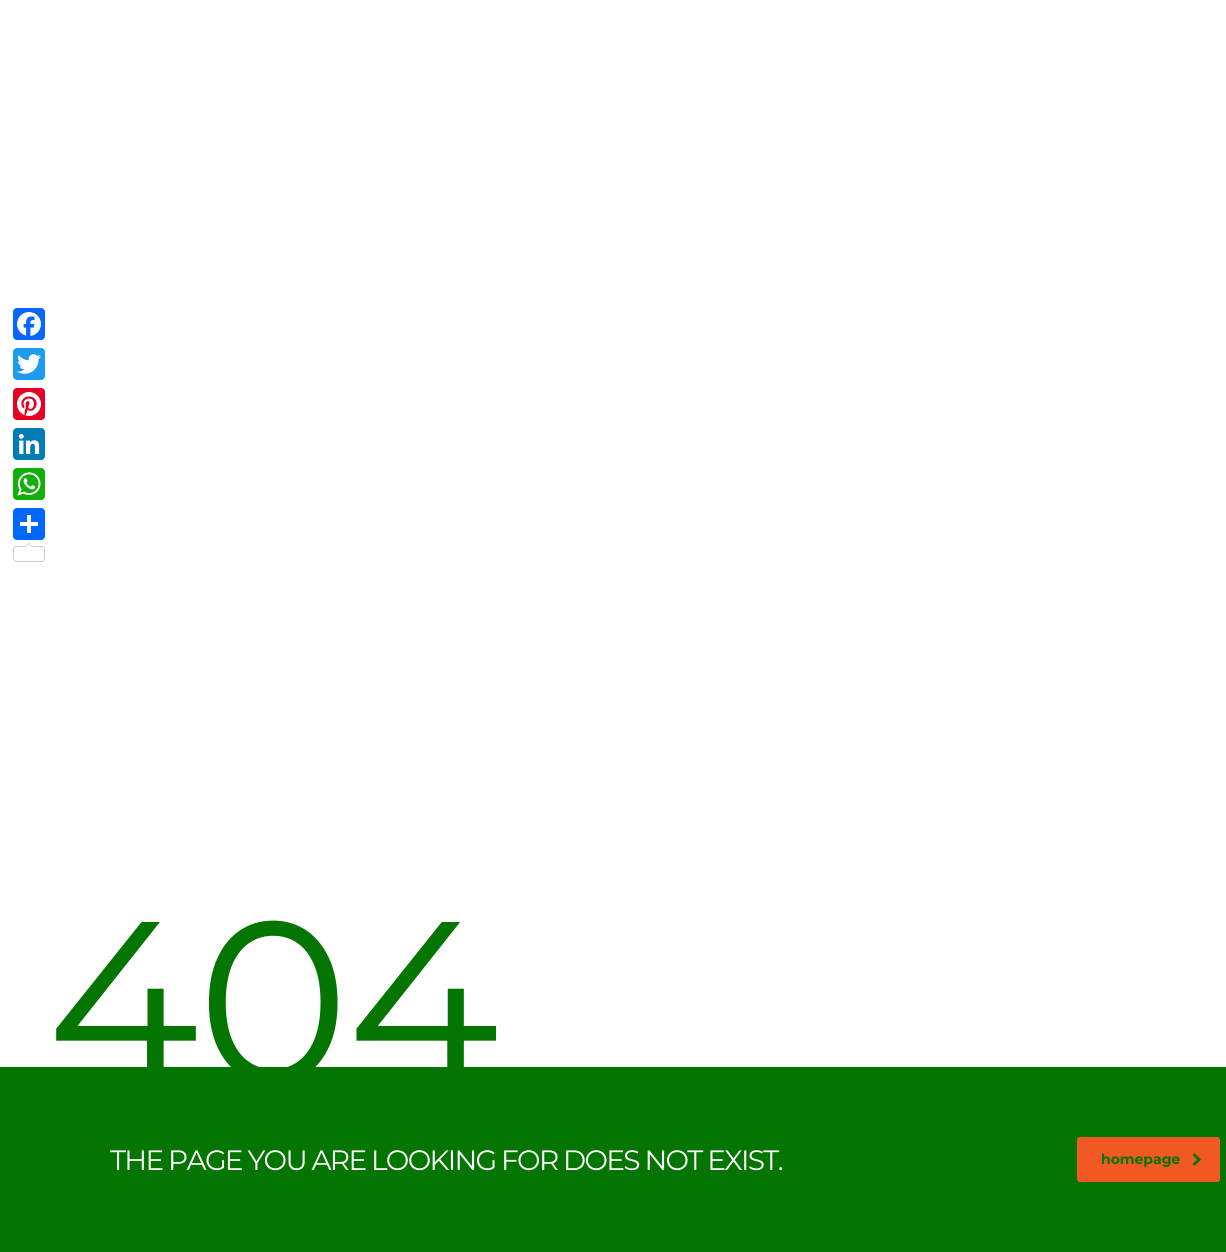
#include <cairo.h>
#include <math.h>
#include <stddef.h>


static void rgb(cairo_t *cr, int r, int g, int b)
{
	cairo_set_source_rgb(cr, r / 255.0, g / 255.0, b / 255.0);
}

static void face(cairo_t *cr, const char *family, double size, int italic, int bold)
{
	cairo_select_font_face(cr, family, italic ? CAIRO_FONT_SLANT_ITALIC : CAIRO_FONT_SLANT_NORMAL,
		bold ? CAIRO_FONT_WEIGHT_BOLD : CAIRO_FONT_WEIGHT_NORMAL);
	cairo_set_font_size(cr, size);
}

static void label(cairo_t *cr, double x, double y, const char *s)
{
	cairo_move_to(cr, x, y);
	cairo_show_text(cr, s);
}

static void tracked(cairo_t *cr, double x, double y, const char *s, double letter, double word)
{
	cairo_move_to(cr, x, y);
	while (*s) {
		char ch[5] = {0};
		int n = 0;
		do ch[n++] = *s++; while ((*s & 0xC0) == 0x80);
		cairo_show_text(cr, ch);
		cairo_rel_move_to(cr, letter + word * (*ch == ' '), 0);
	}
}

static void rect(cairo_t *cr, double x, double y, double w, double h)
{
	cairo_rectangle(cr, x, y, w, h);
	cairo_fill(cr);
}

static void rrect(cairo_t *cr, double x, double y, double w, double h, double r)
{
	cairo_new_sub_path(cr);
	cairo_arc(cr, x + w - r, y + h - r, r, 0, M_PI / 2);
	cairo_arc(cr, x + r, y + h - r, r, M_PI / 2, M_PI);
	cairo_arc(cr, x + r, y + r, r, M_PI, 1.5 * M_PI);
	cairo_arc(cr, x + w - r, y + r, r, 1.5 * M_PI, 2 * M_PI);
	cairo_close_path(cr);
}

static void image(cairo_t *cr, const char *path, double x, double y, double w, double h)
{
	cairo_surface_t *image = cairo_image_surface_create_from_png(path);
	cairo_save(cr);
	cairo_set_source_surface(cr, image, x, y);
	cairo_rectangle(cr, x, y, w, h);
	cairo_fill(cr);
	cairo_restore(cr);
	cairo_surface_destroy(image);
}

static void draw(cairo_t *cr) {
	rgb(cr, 255, 255, 255);
	cairo_paint(cr);
	rgb(cr, 8, 102, 255);
	rrect(cr, 13, 308, 32, 32, 4);
	cairo_fill(cr);
	image(cr, "image0.png", 17, 312, 24, 24);
	rgb(cr, 29, 155, 240);
	rrect(cr, 13, 348, 32, 32, 4);
	cairo_fill(cr);
	image(cr, "image1.png", 17, 354, 24, 20);
	rgb(cr, 230, 0, 35);
	rrect(cr, 13, 388, 32, 32, 4);
	cairo_fill(cr);
	image(cr, "image2.png", 17, 392, 24, 24);
	rgb(cr, 0, 123, 181);
	rrect(cr, 13, 428, 32, 32, 4);
	cairo_fill(cr);
	image(cr, "image3.png", 18, 433, 22, 22);
	rgb(cr, 18, 175, 10);
	rrect(cr, 13, 468, 32, 32, 4);
	cairo_fill(cr);
	image(cr, "image4.png", 17, 472, 24, 24);
	rgb(cr, 1, 102, 255);
	rrect(cr, 13, 508, 32, 32, 4);
	cairo_fill(cr);
	rgb(cr, 255, 255, 255);
	rect(cr, 27, 515, 4, 18);
	rect(cr, 20, 522, 18, 4);
	rrect(cr, 13.5, 546.5, 31, 15, 3.5);
	rgb(cr, 204, 204, 204);
	cairo_set_line_width(cr, 1);
	cairo_stroke(cr);
	cairo_new_path(cr);
	cairo_move_to(cr, 33, 547);
	cairo_line_to(cr, 25, 547);
	cairo_line_to(cr, 29, 543);
	cairo_close_path(cr);
	cairo_fill(cr);
	rgb(cr, 255, 255, 255);
	cairo_new_path(cr);
	cairo_move_to(cr, 33, 548);
	cairo_line_to(cr, 25, 548);
	cairo_line_to(cr, 29, 544);
	cairo_close_path(cr);
	cairo_fill(cr);
	rgb(cr, 3, 117, 0);
	rect(cr, 0, 1067, 1226, 185);
	face(cr, "Montserrat", 230, 0, 0);
	tracked(cr, 47, 1083, "404", -2, 0);
	face(cr, "Montserrat", 28, 0, 0);
	rgb(cr, 255, 255, 255);
	tracked(cr, 110, 1170, "THE PAGE YOU ARE LOOKING FOR DOES NOT EXIST.", -1.7, 0);
	rgb(cr, 241, 88, 34);
	rrect(cr, 1078.5, 1138.5, 140, 42, 1.5);
	cairo_fill_preserve(cr);
	cairo_set_line_width(cr, 3);
	cairo_stroke(cr);
	face(cr, "Montserrat", 14, 0, 1);
	rgb(cr, 3, 117, 0);
	label(cr, 1101, 1164, "homepage");
	image(cr, "image5.png", 1192, 1153, 9, 13);
}

int main(void) {
	cairo_surface_t *surface = cairo_image_surface_create(CAIRO_FORMAT_RGB24, 1226, 1252);
	cairo_t *cr = cairo_create(surface);
	cairo_font_options_t *options = cairo_font_options_create();
	cairo_font_options_set_hint_metrics(options, CAIRO_HINT_METRICS_OFF);
	cairo_font_options_set_hint_style(options, CAIRO_HINT_STYLE_NONE);
	cairo_set_font_options(cr, options);
	cairo_set_miter_limit(cr, 4);
	draw(cr);
	cairo_surface_write_to_png(surface, "render.png");
	cairo_font_options_destroy(options);
	cairo_destroy(cr);
	cairo_surface_destroy(surface);
	return 0;
}
